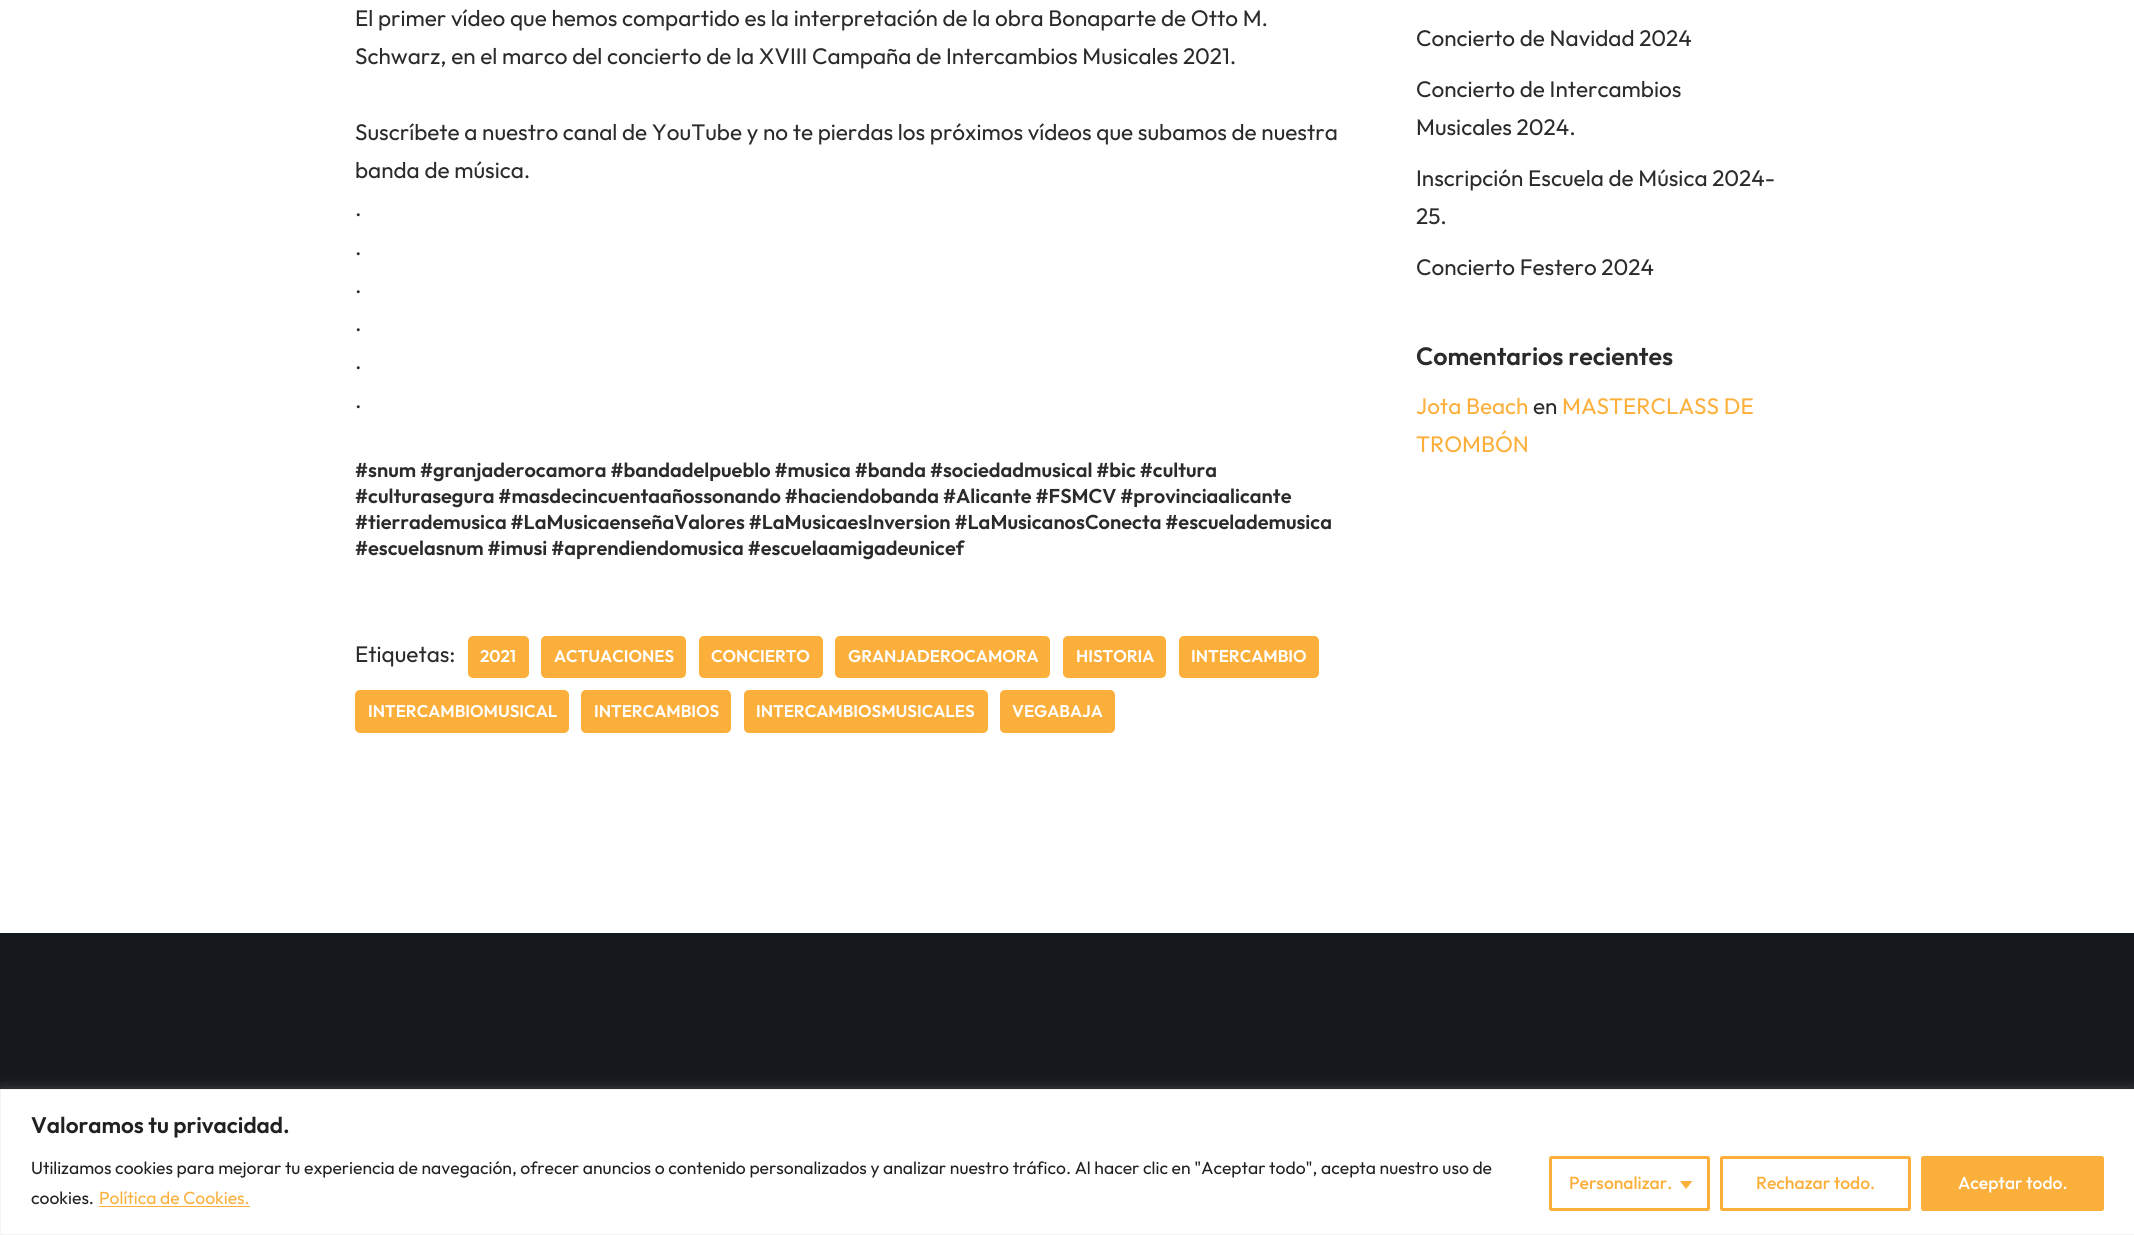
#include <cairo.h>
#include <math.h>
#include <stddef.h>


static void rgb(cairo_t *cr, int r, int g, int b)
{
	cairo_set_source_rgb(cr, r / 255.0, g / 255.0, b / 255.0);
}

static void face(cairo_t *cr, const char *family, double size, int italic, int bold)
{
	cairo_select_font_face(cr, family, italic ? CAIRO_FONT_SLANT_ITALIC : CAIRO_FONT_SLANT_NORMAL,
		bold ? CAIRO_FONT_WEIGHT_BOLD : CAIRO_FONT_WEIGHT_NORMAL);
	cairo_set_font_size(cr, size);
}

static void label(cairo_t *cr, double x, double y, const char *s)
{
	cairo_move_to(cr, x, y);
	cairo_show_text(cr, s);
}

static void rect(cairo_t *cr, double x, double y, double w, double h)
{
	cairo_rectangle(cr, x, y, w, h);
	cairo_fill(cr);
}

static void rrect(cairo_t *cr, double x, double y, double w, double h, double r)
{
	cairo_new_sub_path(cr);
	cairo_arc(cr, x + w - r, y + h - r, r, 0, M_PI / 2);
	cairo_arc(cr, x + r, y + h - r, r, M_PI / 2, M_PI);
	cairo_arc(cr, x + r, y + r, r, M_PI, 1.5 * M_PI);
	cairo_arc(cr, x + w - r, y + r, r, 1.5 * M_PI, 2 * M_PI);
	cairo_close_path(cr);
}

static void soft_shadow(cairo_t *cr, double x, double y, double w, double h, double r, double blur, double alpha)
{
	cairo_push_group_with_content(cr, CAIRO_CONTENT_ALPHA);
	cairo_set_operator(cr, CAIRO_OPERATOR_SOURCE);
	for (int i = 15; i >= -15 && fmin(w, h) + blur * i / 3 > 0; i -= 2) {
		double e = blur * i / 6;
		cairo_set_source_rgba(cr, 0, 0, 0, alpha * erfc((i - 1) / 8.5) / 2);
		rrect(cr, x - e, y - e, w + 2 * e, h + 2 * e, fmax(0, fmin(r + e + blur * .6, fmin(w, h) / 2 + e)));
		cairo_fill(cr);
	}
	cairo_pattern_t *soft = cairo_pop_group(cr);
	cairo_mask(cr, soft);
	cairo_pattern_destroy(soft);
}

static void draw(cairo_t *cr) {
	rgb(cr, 255, 255, 255);
	cairo_paint(cr);
	face(cr, "Outfit", 22.5, 0, 0);
	rgb(cr, 43, 43, 43);
	label(cr, 355, 26, "El primer vídeo que hemos compartido es la interpretación de la obra Bonaparte de Otto M.");
	label(cr, 355, 64, "Schwarz, en el marco del concierto de la XVIII Campaña de Intercambios Musicales 2021.");
	label(cr, 355, 140, "Suscríbete a nuestro canal de YouTube y no te pierdas los próximos vídeos que subamos de nuestra");
	label(cr, 355, 178, "banda de música.");
	label(cr, 355, 216, ".");
	label(cr, 355, 255, ".");
	label(cr, 355, 293, ".");
	label(cr, 355, 331, ".");
	label(cr, 355, 369, ".");
	label(cr, 355, 408, ".");
	face(cr, "Outfit SemiBold", 20, 0, 0);
	label(cr, 355, 477, "#snum #granjaderocamora #bandadelpueblo #musica #banda #sociedadmusical #bic #cultura");
	label(cr, 355, 503, "#culturasegura #masdecincuentaañossonando #haciendobanda #Alicante #FSMCV #provinciaalicante");
	label(cr, 355, 529, "#tierrademusica #LaMusicaenseñaValores #LaMusicaesInversion #LaMusicanosConecta #escuelademusica");
	label(cr, 355, 555, "#escuelasnum #imusi #aprendiendomusica #escuelaamigadeunicef");
	face(cr, "Outfit", 22.5, 0, 0);
	label(cr, 355, 662, "Etiquetas:");
	rgb(cr, 252, 175, 59);
	rrect(cr, 468, 636, 61, 42, 5);
	cairo_fill(cr);
	face(cr, "Outfit SemiBold", 16.9, 0, 0);
	rgb(cr, 255, 255, 255);
	label(cr, 480, 662, "2021");
	rgb(cr, 252, 175, 59);
	rrect(cr, 541, 636, 145, 42, 5);
	cairo_fill(cr);
	rgb(cr, 255, 255, 255);
	label(cr, 554, 662, "ACTUACIONES");
	rgb(cr, 252, 175, 59);
	rrect(cr, 699, 636, 124, 42, 5);
	cairo_fill(cr);
	rgb(cr, 255, 255, 255);
	label(cr, 711, 662, "CONCIERTO");
	rgb(cr, 252, 175, 59);
	rrect(cr, 835, 636, 215, 42, 5);
	cairo_fill(cr);
	rgb(cr, 255, 255, 255);
	label(cr, 848, 662, "GRANJADEROCAMORA");
	rgb(cr, 252, 175, 59);
	rrect(cr, 1063, 636, 103, 42, 5);
	cairo_fill(cr);
	rgb(cr, 255, 255, 255);
	label(cr, 1076, 662, "HISTORIA");
	rgb(cr, 252, 175, 59);
	rrect(cr, 1179, 636, 140, 42, 5);
	cairo_fill(cr);
	rgb(cr, 255, 255, 255);
	label(cr, 1191, 662, "INTERCAMBIO");
	rgb(cr, 252, 175, 59);
	rrect(cr, 355, 690, 214, 43, 5);
	cairo_fill(cr);
	rgb(cr, 255, 255, 255);
	label(cr, 368, 717, "INTERCAMBIOMUSICAL");
	rgb(cr, 252, 175, 59);
	rrect(cr, 581, 690, 150, 43, 5);
	cairo_fill(cr);
	rgb(cr, 255, 255, 255);
	label(cr, 594, 717, "INTERCAMBIOS");
	rgb(cr, 252, 175, 59);
	rrect(cr, 744, 690, 244, 43, 5);
	cairo_fill(cr);
	rgb(cr, 255, 255, 255);
	label(cr, 756, 717, "INTERCAMBIOSMUSICALES");
	rgb(cr, 252, 175, 59);
	rrect(cr, 1000, 690, 115, 43, 5);
	cairo_fill(cr);
	rgb(cr, 255, 255, 255);
	label(cr, 1012, 717, "VEGABAJA");
	face(cr, "Outfit", 22.5, 0, 0);
	rgb(cr, 43, 43, 43);
	label(cr, 1416, 46, "Concierto de Navidad 2024");
	label(cr, 1416, 97, "Concierto de Intercambios");
	label(cr, 1416, 135, "Musicales 2024.");
	label(cr, 1416, 186, "Inscripción Escuela de Música 2024-");
	label(cr, 1416, 224, "25.");
	label(cr, 1416, 275, "Concierto Festero 2024");
	face(cr, "Outfit SemiBold", 25, 0, 0);
	label(cr, 1416, 365, "Comentarios recientes");
	face(cr, "Outfit", 22.5, 0, 0);
	rgb(cr, 252, 175, 59);
	label(cr, 1416, 414, "Jota Beach");
	rgb(cr, 43, 43, 43);
	label(cr, 1533, 414, "en");
	rgb(cr, 252, 175, 59);
	label(cr, 1562, 414, "MASTERCLASS DE");
	label(cr, 1416, 452, "TROMBÓN");
	rgb(cr, 20, 23, 28);
	rect(cr, 0, 933, 2134, 156);
	rgb(cr, 172, 171, 171);
	soft_shadow(cr, 0, 1088, 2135, 146, 0, 6, 0.3);
	rgb(cr, 255, 255, 255);
	cairo_rectangle(cr, 0.5, 1089.5, 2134, 145);
	cairo_fill_preserve(cr);
	rgb(cr, 244, 244, 244);
	cairo_set_line_width(cr, 1);
	cairo_stroke(cr);
	face(cr, "Outfit SemiBold", 22.5, 0, 0);
	rgb(cr, 33, 33, 33);
	label(cr, 31, 1133, "Valoramos tu privacidad.");
	face(cr, "Outfit", 17.5, 0, 0);
	label(cr, 31, 1174, "Utilizamos cookies para mejorar tu experiencia de navegación, ofrecer anuncios o contenido personalizados y analizar nuestro tráfico. Al hacer clic en \"Aceptar todo\", acepta nuestro uso de");
	label(cr, 31, 1204, "cookies.");
	rgb(cr, 252, 175, 59);
	label(cr, 99, 1204, "Política de Cookies.");
	rect(cr, 99, 1206, 151, 1);
	rrect(cr, 1550.5, 1157.5, 158, 52, 1);
	cairo_set_line_width(cr, 3);
	cairo_stroke(cr);
	face(cr, "Outfit Medium", 17.5, 0, 0);
	label(cr, 1569, 1189, "Personalizar.");
	cairo_new_path(cr);
	cairo_move_to(cr, 1680, 1181);
	cairo_line_to(cr, 1692.5, 1181);
	cairo_line_to(cr, 1686, 1189);
	cairo_close_path(cr);
	cairo_fill(cr);
	rrect(cr, 1721.5, 1157.5, 188, 52, 1);
	cairo_stroke(cr);
	label(cr, 1756, 1189, "Rechazar todo.");
	rrect(cr, 1922.5, 1157.5, 180, 52, 1);
	cairo_fill_preserve(cr);
	cairo_stroke(cr);
	rgb(cr, 255, 255, 255);
	label(cr, 1958, 1189, "Aceptar todo.");
}

int main(void) {
	cairo_surface_t *surface = cairo_image_surface_create(CAIRO_FORMAT_RGB24, 2134, 1235);
	cairo_t *cr = cairo_create(surface);
	cairo_font_options_t *options = cairo_font_options_create();
	cairo_font_options_set_hint_metrics(options, CAIRO_HINT_METRICS_OFF);
	cairo_font_options_set_hint_style(options, CAIRO_HINT_STYLE_NONE);
	cairo_set_font_options(cr, options);
	cairo_set_miter_limit(cr, 4);
	draw(cr);
	cairo_surface_write_to_png(surface, "render.png");
	cairo_font_options_destroy(options);
	cairo_destroy(cr);
	cairo_surface_destroy(surface);
	return 0;
}
